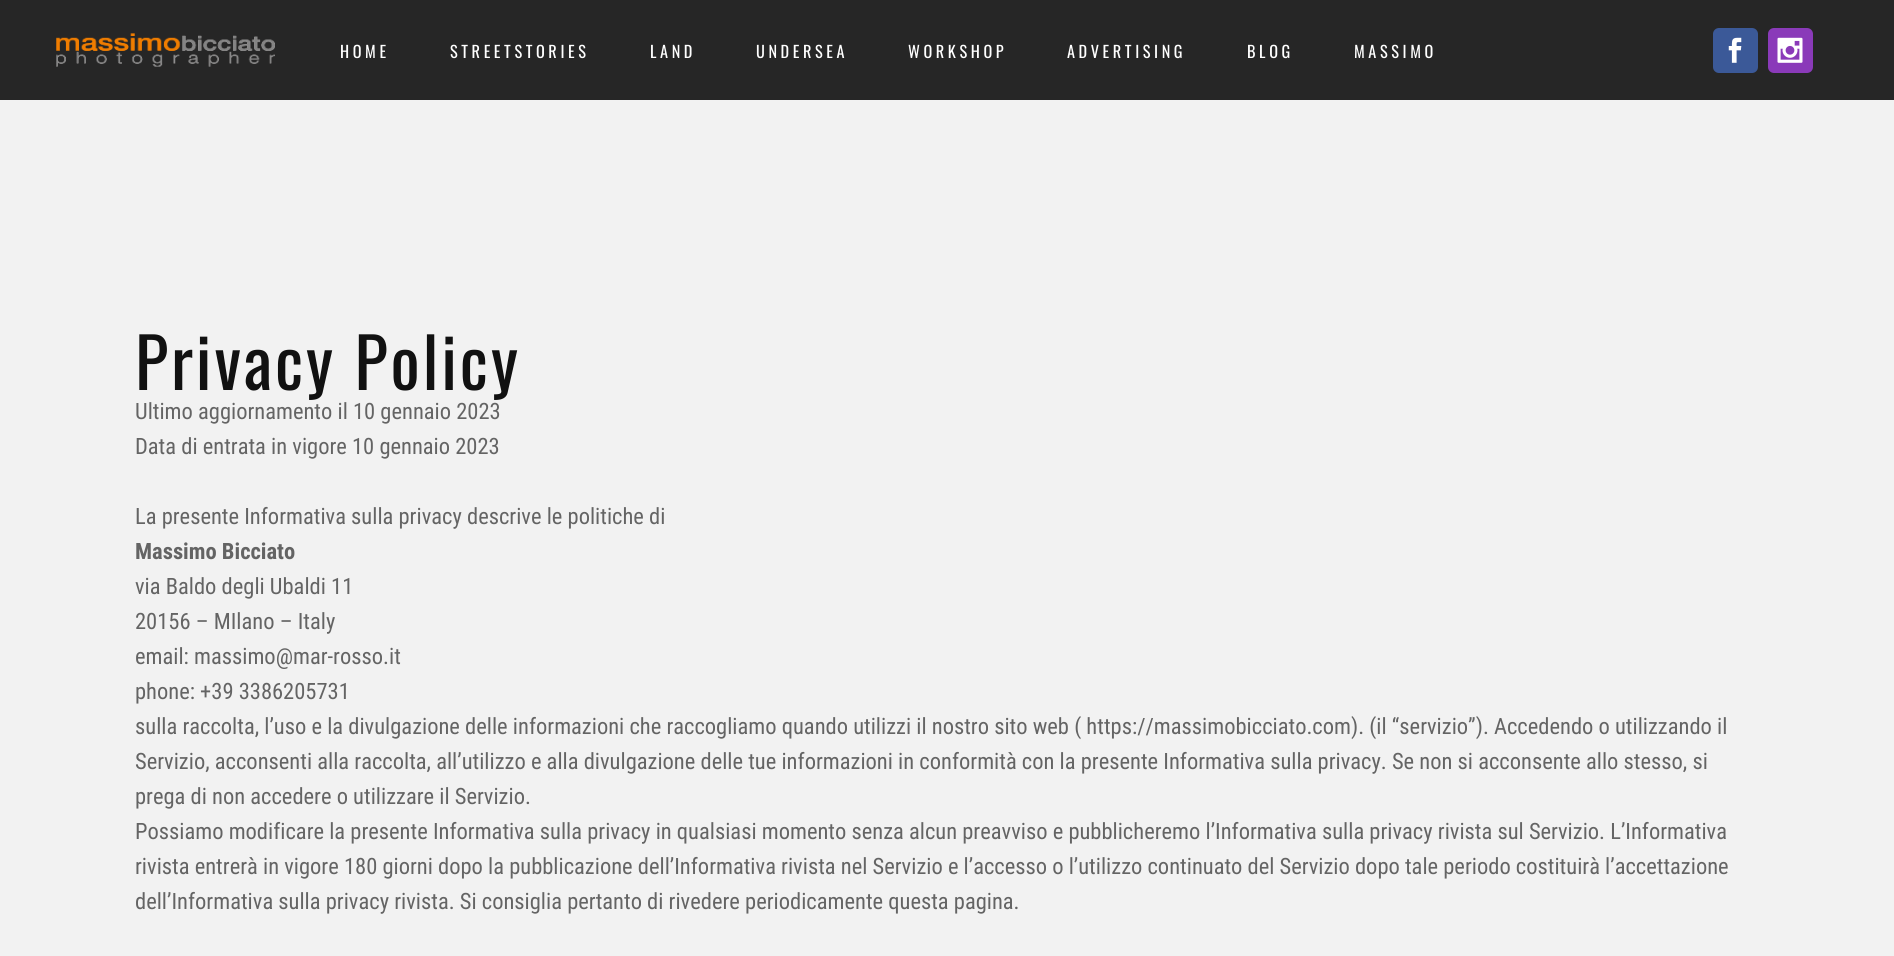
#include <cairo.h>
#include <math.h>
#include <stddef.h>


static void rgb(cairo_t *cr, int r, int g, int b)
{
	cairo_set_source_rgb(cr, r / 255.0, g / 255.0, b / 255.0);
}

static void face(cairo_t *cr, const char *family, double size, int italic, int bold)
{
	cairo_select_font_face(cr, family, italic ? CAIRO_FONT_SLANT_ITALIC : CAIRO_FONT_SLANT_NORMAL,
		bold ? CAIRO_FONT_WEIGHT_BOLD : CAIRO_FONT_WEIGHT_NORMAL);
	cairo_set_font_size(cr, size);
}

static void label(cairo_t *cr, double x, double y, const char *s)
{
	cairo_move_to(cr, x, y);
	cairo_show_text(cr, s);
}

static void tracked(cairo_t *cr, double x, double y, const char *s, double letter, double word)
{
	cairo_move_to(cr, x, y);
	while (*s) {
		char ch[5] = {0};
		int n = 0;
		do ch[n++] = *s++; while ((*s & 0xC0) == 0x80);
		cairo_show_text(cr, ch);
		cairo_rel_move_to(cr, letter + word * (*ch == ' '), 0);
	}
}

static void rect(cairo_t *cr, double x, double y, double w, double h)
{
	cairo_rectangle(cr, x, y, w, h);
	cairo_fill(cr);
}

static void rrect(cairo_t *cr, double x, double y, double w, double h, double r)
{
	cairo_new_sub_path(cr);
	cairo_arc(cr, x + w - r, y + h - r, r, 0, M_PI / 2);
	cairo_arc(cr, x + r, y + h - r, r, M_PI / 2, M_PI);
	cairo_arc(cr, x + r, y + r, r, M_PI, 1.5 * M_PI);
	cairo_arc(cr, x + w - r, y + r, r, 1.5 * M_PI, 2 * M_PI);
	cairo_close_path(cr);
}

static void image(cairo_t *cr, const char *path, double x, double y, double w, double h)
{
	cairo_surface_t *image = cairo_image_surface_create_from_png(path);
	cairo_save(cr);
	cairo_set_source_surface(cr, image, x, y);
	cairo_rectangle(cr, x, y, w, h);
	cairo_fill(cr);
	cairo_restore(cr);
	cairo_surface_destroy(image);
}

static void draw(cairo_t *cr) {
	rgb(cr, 242, 242, 242);
	cairo_paint(cr);
	rgb(cr, 38, 38, 38);
	rect(cr, 0, 0, 1894, 100);
	image(cr, "image0.png", 56, 33, 219, 34);
	face(cr, "Oswald", 16.25, 0, 0);
	rgb(cr, 255, 255, 255);
	tracked(cr, 340, 58, "HOME", 3.6, 0);
	tracked(cr, 450, 58, "STREETSTORIES", 3.6, 0);
	tracked(cr, 650, 58, "LAND", 3.6, 0);
	tracked(cr, 756, 58, "UNDERSEA", 3.6, 0);
	tracked(cr, 908, 58, "WORKSHOP", 3.6, 0);
	tracked(cr, 1067, 58, "ADVERTISING", 3.6, 0);
	tracked(cr, 1247, 58, "BLOG", 3.6, 0);
	tracked(cr, 1354, 58, "MASSIMO", 3.6, 0);
	rgb(cr, 59, 89, 152);
	rrect(cr, 1713, 28, 45, 45, 6);
	cairo_fill(cr);
	image(cr, "image1.png", 1728, 37, 14, 26);
	rgb(cr, 138, 58, 185);
	rrect(cr, 1768, 28, 45, 45, 6);
	cairo_fill(cr);
	image(cr, "image2.png", 1777, 37, 26, 26);
	face(cr, "Oswald", 68.75, 0, 0);
	rgb(cr, 17, 17, 17);
	tracked(cr, 135, 390, "Privacy Policy", 2.9, 0);
	face(cr, "Roboto Condensed", 22.5, 0, 0);
	rgb(cr, 100, 100, 100);
	label(cr, 135, 419, "Ultimo aggiornamento il 10 gennaio 2023");
	label(cr, 135, 454, "Data di entrata in vigore 10 gennaio 2023");
	label(cr, 135, 524, "La presente Informativa sulla privacy descrive le politiche di");
	face(cr, "Roboto Condensed", 22.5, 0, 1);
	label(cr, 135, 559, "Massimo Bicciato");
	face(cr, "Roboto Condensed", 22.5, 0, 0);
	label(cr, 135, 594, "via Baldo degli Ubaldi 11");
	label(cr, 135, 629, "20156 – MIlano – Italy");
	label(cr, 135, 664, "email: massimo@mar-rosso.it");
	label(cr, 135, 699, "phone: +39 3386205731");
	label(cr, 135, 734, "sulla raccolta, l’uso e la divulgazione delle informazioni che raccogliamo quando utilizzi il nostro sito web ( https://massimobicciato.com). (il “servizio”). Accedendo o utilizzando il");
	label(cr, 135, 769, "Servizio, acconsenti alla raccolta, all’utilizzo e alla divulgazione delle tue informazioni in conformità con la presente Informativa sulla privacy. Se non si acconsente allo stesso, si");
	label(cr, 135, 804, "prega di non accedere o utilizzare il Servizio.");
	label(cr, 135, 839, "Possiamo modificare la presente Informativa sulla privacy in qualsiasi momento senza alcun preavviso e pubblicheremo l’Informativa sulla privacy rivista sul Servizio. L’Informativa");
	label(cr, 135, 874, "rivista entrerà in vigore 180 giorni dopo la pubblicazione dell’Informativa rivista nel Servizio e l’accesso o l’utilizzo continuato del Servizio dopo tale periodo costituirà l’accettazione");
	label(cr, 135, 909, "dell’Informativa sulla privacy rivista. Si consiglia pertanto di rivedere periodicamente questa pagina.");
}

int main(void) {
	cairo_surface_t *surface = cairo_image_surface_create(CAIRO_FORMAT_RGB24, 1894, 956);
	cairo_t *cr = cairo_create(surface);
	cairo_font_options_t *options = cairo_font_options_create();
	cairo_font_options_set_hint_metrics(options, CAIRO_HINT_METRICS_OFF);
	cairo_font_options_set_hint_style(options, CAIRO_HINT_STYLE_NONE);
	cairo_set_font_options(cr, options);
	cairo_set_miter_limit(cr, 4);
	draw(cr);
	cairo_surface_write_to_png(surface, "render.png");
	cairo_font_options_destroy(options);
	cairo_destroy(cr);
	cairo_surface_destroy(surface);
	return 0;
}
